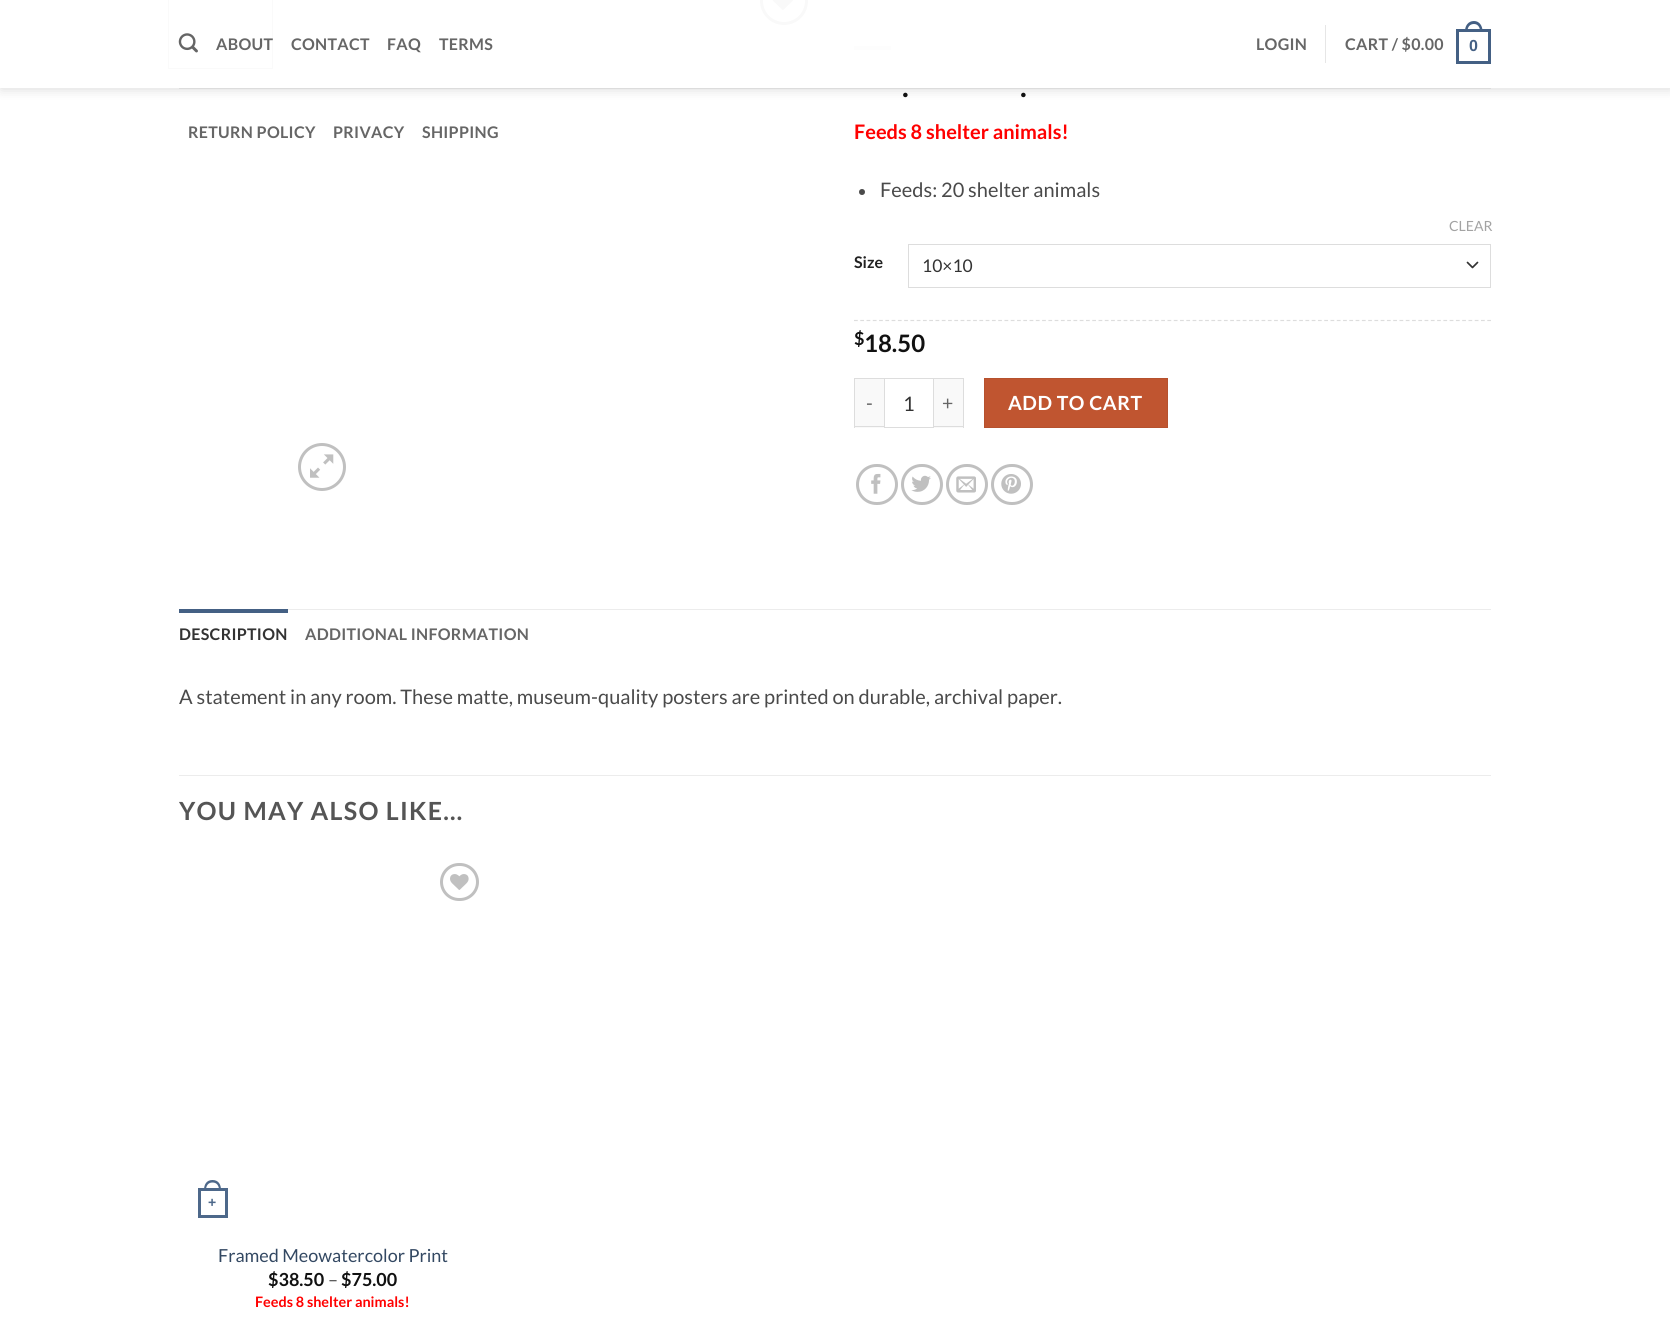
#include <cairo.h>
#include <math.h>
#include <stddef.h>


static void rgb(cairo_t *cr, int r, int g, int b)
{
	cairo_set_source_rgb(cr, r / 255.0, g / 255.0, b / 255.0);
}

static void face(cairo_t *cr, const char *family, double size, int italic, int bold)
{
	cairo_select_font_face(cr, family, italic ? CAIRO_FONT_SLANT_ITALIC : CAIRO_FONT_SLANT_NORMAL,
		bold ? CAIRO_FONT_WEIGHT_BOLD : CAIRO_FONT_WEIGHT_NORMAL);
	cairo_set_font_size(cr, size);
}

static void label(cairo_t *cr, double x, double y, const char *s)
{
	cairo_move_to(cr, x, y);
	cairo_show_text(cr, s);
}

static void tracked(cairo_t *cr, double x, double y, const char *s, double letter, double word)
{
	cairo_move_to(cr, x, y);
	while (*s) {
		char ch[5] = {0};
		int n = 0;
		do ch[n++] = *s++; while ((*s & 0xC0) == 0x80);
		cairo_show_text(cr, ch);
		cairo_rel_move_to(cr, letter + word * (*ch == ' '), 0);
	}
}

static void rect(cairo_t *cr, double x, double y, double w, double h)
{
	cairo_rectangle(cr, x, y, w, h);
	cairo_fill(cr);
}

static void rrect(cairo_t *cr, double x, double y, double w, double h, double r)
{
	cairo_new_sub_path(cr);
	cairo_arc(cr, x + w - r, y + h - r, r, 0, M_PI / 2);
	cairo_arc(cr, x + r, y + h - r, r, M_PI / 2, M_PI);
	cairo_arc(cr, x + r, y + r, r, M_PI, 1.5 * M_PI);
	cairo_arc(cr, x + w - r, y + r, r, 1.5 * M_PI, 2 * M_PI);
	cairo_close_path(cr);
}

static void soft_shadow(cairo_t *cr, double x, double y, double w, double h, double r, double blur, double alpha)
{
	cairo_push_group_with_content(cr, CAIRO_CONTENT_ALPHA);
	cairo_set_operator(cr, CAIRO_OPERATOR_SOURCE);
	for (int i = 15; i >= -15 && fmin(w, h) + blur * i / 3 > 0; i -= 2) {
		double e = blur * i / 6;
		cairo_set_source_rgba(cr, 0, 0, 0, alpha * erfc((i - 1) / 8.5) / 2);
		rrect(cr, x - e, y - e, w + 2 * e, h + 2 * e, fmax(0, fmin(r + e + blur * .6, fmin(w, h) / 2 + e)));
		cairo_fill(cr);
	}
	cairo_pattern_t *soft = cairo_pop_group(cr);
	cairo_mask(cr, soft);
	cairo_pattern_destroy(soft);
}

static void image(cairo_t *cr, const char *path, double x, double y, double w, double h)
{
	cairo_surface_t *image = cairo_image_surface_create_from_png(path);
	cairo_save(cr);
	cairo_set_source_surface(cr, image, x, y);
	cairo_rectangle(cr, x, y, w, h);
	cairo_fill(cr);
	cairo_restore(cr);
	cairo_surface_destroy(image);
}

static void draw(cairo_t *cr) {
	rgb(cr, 255, 255, 255);
	cairo_paint(cr);
	cairo_rectangle(cr, 168.5, -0.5, 104, 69);
	rgb(cr, 204, 204, 204);
	cairo_set_line_width(cr, 1);
	cairo_stroke(cr);
	rrect(cr, 761.5, -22.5, 45, 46, 22.5);
	rgb(cr, 192, 192, 192);
	cairo_set_line_width(cr, 3);
	cairo_stroke(cr);
	image(cr, "image1.png", 772, 0, 21, 10);
	rgb(cr, 230, 230, 230);
	rect(cr, 854, 46, 37, 4);
	cairo_save(cr);
	cairo_set_fill_rule(cr, CAIRO_FILL_RULE_EVEN_ODD);
	cairo_new_path(cr);
	cairo_move_to(cr, 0, 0);
	cairo_line_to(cr, 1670, 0);
	cairo_line_to(cr, 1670, 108);
	cairo_line_to(cr, 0, 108);
	cairo_close_path(cr);
	cairo_move_to(cr, 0, 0);
	cairo_line_to(cr, 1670, 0);
	cairo_line_to(cr, 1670, 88);
	cairo_line_to(cr, 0, 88);
	cairo_close_path(cr);
	cairo_clip(cr);
	rgb(cr, 0, 0, 0);
	soft_shadow(cr, 1, 1, 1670, 88, 0, 6, 0.15);
	cairo_restore(cr);
	cairo_set_source_rgba(cr, 1, 1, 1, 0.9);
	rect(cr, 0, 0, 1670, 88);
	image(cr, "image0.png", 178, 33, 20, 20);
	face(cr, "Lato", 16, 0, 1);
	rgb(cr, 102, 102, 102);
	tracked(cr, 216, 50, "ABOUT", 0.3, 0);
	tracked(cr, 291, 50, "CONTACT", 0.3, 0);
	tracked(cr, 387, 50, "FAQ", 0.3, 0);
	tracked(cr, 439, 50, "TERMS", 0.3, 0);
	tracked(cr, 188, 138, "RETURN POLICY", 0.3, 0);
	tracked(cr, 333, 138, "PRIVACY", 0.3, 0);
	tracked(cr, 422, 138, "SHIPPING", 0.3, 0);
	tracked(cr, 1256, 50, "LOGIN", 0.3, 0);
	rgb(cr, 230, 230, 230);
	rect(cr, 1325, 25, 1, 38);
	rgb(cr, 102, 102, 102);
	tracked(cr, 1345, 50, "CART / $0.00", 0.3, 0);
	cairo_rectangle(cr, 1457.5, 30.5, 32, 32);
	rgb(cr, 68, 96, 132);
	cairo_stroke(cr);
	cairo_set_fill_rule(cr, CAIRO_FILL_RULE_EVEN_ODD);
	cairo_new_path(cr);
	cairo_move_to(cr, 1474, 21);
	cairo_curve_to(cr, 1479.5, 21, 1482.5, 26, 1482.5, 31);
	cairo_line_to(cr, 1465, 31);
	cairo_curve_to(cr, 1465, 26, 1468, 21, 1474, 21);
	cairo_close_path(cr);
	cairo_move_to(cr, 1474, 24);
	cairo_curve_to(cr, 1478, 24, 1480, 27.5, 1480, 31);
	cairo_line_to(cr, 1467.5, 31);
	cairo_curve_to(cr, 1467.5, 27.5, 1469.5, 24, 1474, 24);
	cairo_close_path(cr);
	cairo_fill(cr);
	face(cr, "Liberation Sans", 16, 0, 1);
	tracked(cr, 1469, 51, "0", 0.3, 0);
	cairo_set_source_rgba(cr, 0.29, 0.29, 0.29, 0.1);
	rect(cr, 179, 88, 1312, 1);
	cairo_new_path(cr);
	cairo_arc(cr, 322, 467, 22.5, 0, 2 * M_PI);
	rgb(cr, 192, 192, 192);
	cairo_stroke(cr);
	image(cr, "image2.png", 310, 454, 24, 24);
	face(cr, "Lato", 30, 0, 1);
	rgb(cr, 17, 17, 17);
	label(cr, 902, 97, ".");
	label(cr, 1020, 97, ".");
	face(cr, "Lato", 20, 0, 1);
	rgb(cr, 255, 0, 0);
	label(cr, 854, 139, "Feeds 8 shelter animals!");
	rgb(cr, 74, 74, 74);
	cairo_new_path(cr);
	cairo_arc(cr, 862, 192, 3, 0, 2 * M_PI);
	cairo_fill(cr);
	face(cr, "Lato", 20, 0, 0);
	label(cr, 880, 197, "Feeds: 20 shelter animals");
	face(cr, "Lato", 16, 0, 1);
	rgb(cr, 34, 34, 34);
	label(cr, 854, 268, "Size");
	face(cr, "Lato", 14, 0, 0);
	rgb(cr, 163, 163, 163);
	label(cr, 1449, 231, "CLEAR");
	cairo_new_path(cr);
	cairo_move_to(cr, 1467.5, 262.5);
	cairo_line_to(cr, 1472.5, 267.5);
	cairo_line_to(cr, 1477.5, 262.5);
	rgb(cr, 51, 51, 51);
	cairo_set_line_width(cr, 1.7);
	cairo_set_line_cap(cr, CAIRO_LINE_CAP_ROUND);
	cairo_set_line_join(cr, CAIRO_LINE_JOIN_ROUND);
	cairo_stroke(cr);
	cairo_rectangle(cr, 908.5, 244.5, 582, 43);
	rgb(cr, 221, 221, 221);
	cairo_set_line_width(cr, 1);
	cairo_set_line_cap(cr, CAIRO_LINE_CAP_BUTT);
	cairo_set_line_join(cr, CAIRO_LINE_JOIN_MITER);
	cairo_stroke(cr);
	face(cr, "Lato", 17.5, 0, 0);
	rgb(cr, 51, 51, 51);
	label(cr, 922, 272, "10×10");
	cairo_new_path(cr);
	cairo_move_to(cr, 854, 320.5);
	cairo_line_to(cr, 1491, 320.5);
	rgb(cr, 221, 221, 221);
	cairo_set_line_width(cr, 1.2);
	cairo_set_dash(cr, (double[]){3.75, 2.52}, 2, 0);
	cairo_stroke(cr);
	face(cr, "Lato", 18, 0, 1);
	rgb(cr, 17, 17, 17);
	label(cr, 854, 345, "$");
	face(cr, "Lato", 24, 0, 1);
	label(cr, 864, 352, "18.50");
	rgb(cr, 249, 249, 249);
	rect(cr, 855, 379, 29, 49);
	rgb(cr, 221, 221, 221);
	rect(cr, 854, 378, 30, 1);
	rect(cr, 854, 426, 30, 1);
	rect(cr, 854, 378, 1, 50);
	face(cr, "Lato", 19.5, 0, 0);
	rgb(cr, 102, 102, 102);
	tracked(cr, 866, 410, "-", 0.5, 0);
	cairo_rectangle(cr, 884.5, 378.5, 49, 49);
	rgb(cr, 221, 221, 221);
	cairo_set_line_width(cr, 1);
	cairo_set_dash(cr, NULL, 0, 0);
	cairo_stroke(cr);
	face(cr, "Lato", 20, 0, 0);
	rgb(cr, 51, 51, 51);
	label(cr, 903, 411, "1");
	rgb(cr, 249, 249, 249);
	rect(cr, 934, 379, 29, 49);
	rgb(cr, 221, 221, 221);
	rect(cr, 934, 378, 30, 1);
	rect(cr, 963, 378, 1, 50);
	rect(cr, 934, 426, 30, 1);
	face(cr, "Lato", 19.5, 0, 0);
	rgb(cr, 102, 102, 102);
	tracked(cr, 942, 410, "+", 0.5, 0);
	rgb(cr, 192, 85, 48);
	cairo_rectangle(cr, 984.5, 378.5, 183, 49);
	cairo_fill_preserve(cr);
	rgb(cr, 182, 81, 46);
	cairo_stroke(cr);
	face(cr, "Lato", 19.5, 0, 1);
	rgb(cr, 255, 255, 255);
	tracked(cr, 1008, 410, "ADD TO CART", 0.5, 0);
	rrect(cr, 857.5, 465.5, 39, 38, 19);
	rgb(cr, 192, 192, 192);
	cairo_set_line_width(cr, 3);
	cairo_stroke(cr);
	image(cr, "image3.png", 871, 473, 10, 21);
	rrect(cr, 902.5, 465.5, 39, 38, 19);
	cairo_stroke(cr);
	image(cr, "image4.png", 911, 475, 20, 17);
	rrect(cr, 947.5, 465.5, 39, 38, 19);
	cairo_stroke(cr);
	image(cr, "image5.png", 956, 476, 20, 17);
	rrect(cr, 992.5, 465.5, 39, 38, 19);
	cairo_stroke(cr);
	image(cr, "image6.png", 1001, 474, 20, 20);
	rgb(cr, 236, 236, 236);
	rect(cr, 288, 609, 1203, 1);
	rgb(cr, 68, 96, 132);
	rect(cr, 179, 609, 109, 4);
	face(cr, "Lato", 16, 0, 1);
	rgb(cr, 51, 51, 51);
	tracked(cr, 179, 640, "DESCRIPTION", 0.3, 0);
	rgb(cr, 102, 102, 102);
	tracked(cr, 305, 640, "ADDITIONAL INFORMATION", 0.3, 0);
	face(cr, "Lato", 20, 0, 0);
	rgb(cr, 74, 74, 74);
	label(cr, 179, 704, "A statement in any room. These matte, museum-quality posters are printed on durable, archival paper.");
	rgb(cr, 236, 236, 236);
	rect(cr, 179, 775, 1312, 1);
	face(cr, "Lato", 25, 0, 1);
	rgb(cr, 85, 85, 85);
	tracked(cr, 179, 820, "YOU MAY ALSO LIKE…", 1.25, 0);
	rrect(cr, 441.5, 864.5, 36, 35, 17.5);
	rgb(cr, 192, 192, 192);
	cairo_stroke(cr);
	image(cr, "image7.png", 450, 874, 19, 16);
	cairo_rectangle(cr, 199.5, 1189.5, 27, 27);
	rgb(cr, 77, 104, 138);
	cairo_stroke(cr);
	cairo_new_path(cr);
	cairo_move_to(cr, 212.5, 1180);
	cairo_curve_to(cr, 218.5, 1180, 221, 1184.5, 221, 1190);
	cairo_line_to(cr, 204, 1190);
	cairo_curve_to(cr, 204, 1184.5, 206.5, 1180, 212.5, 1180);
	cairo_close_path(cr);
	cairo_move_to(cr, 212.5, 1182.5);
	cairo_curve_to(cr, 217, 1182.5, 219, 1186, 219, 1190);
	cairo_line_to(cr, 206, 1190);
	cairo_curve_to(cr, 206, 1186, 208, 1182.5, 212.5, 1182.5);
	cairo_close_path(cr);
	cairo_fill(cr);
	face(cr, "Liberation Sans", 14, 0, 1);
	label(cr, 208, 1207, "+");
	face(cr, "Lato", 18, 0, 0);
	rgb(cr, 51, 72, 98);
	label(cr, 218, 1262, "Framed Meowatercolor Print");
	face(cr, "Lato", 18, 0, 1);
	rgb(cr, 17, 17, 17);
	label(cr, 268, 1286, "$38.50");
	face(cr, "Lato", 18, 0, 0);
	rgb(cr, 74, 74, 74);
	label(cr, 328, 1286, "–");
	face(cr, "Lato", 18, 0, 1);
	rgb(cr, 17, 17, 17);
	label(cr, 341, 1286, "$75.00");
	face(cr, "Lato", 14.4, 0, 1);
	rgb(cr, 255, 0, 0);
	label(cr, 255, 1307, "Feeds 8 shelter animals!");
}

int main(void) {
	cairo_surface_t *surface = cairo_image_surface_create(CAIRO_FORMAT_RGB24, 1670, 1339);
	cairo_t *cr = cairo_create(surface);
	cairo_font_options_t *options = cairo_font_options_create();
	cairo_font_options_set_hint_metrics(options, CAIRO_HINT_METRICS_OFF);
	cairo_font_options_set_hint_style(options, CAIRO_HINT_STYLE_NONE);
	cairo_set_font_options(cr, options);
	cairo_set_miter_limit(cr, 4);
	draw(cr);
	cairo_surface_write_to_png(surface, "render.png");
	cairo_font_options_destroy(options);
	cairo_destroy(cr);
	cairo_surface_destroy(surface);
	return 0;
}
